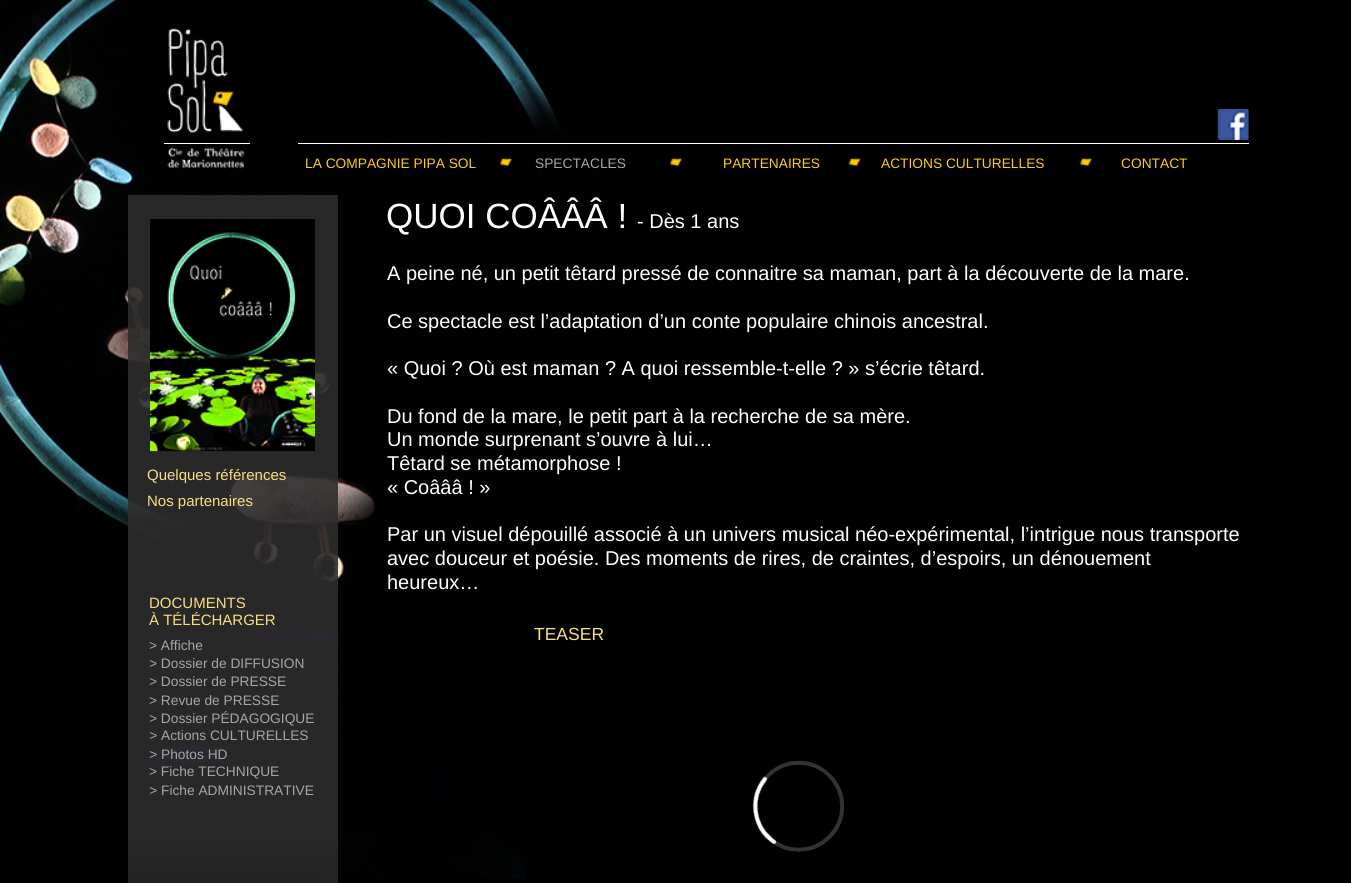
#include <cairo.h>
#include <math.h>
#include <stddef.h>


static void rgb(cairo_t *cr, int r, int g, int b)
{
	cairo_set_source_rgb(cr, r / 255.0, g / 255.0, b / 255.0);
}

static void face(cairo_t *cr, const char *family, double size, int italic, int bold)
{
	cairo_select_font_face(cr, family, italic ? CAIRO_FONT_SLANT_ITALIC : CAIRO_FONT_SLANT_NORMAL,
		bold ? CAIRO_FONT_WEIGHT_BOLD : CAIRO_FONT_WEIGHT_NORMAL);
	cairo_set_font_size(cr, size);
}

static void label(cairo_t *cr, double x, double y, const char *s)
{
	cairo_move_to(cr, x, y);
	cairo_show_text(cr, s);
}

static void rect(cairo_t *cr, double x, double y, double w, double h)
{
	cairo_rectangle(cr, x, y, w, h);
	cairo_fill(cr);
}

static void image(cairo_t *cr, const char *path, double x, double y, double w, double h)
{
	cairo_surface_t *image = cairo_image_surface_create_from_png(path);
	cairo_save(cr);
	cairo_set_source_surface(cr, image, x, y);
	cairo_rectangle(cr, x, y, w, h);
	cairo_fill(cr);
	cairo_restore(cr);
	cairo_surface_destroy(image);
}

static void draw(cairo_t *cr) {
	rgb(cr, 0, 0, 0);
	cairo_paint(cr);
	image(cr, "image0.png", 0, 0, 600, 883);
	image(cr, "image1.png", 167, 28, 77, 141);
	rgb(cr, 255, 255, 255);
	rect(cr, 164, 143, 86, 1);
	image(cr, "image2.png", 1217, 108, 32, 32);
	rect(cr, 298, 143, 951, 1);
	face(cr, "Liberation Sans", 13.75, 0, 0);
	rgb(cr, 254, 204, 23);
	label(cr, 305, 168, "LA COMPAGNIE PIPA SOL");
	rgb(cr, 165, 166, 168);
	label(cr, 535, 168, "SPECTACLES");
	rgb(cr, 254, 204, 23);
	label(cr, 723, 168, "PARTENAIRES");
	label(cr, 881, 168, "ACTIONS CULTURELLES");
	label(cr, 1121, 168, "CONTACT");
	image(cr, "image3.png", 499, 158, 13, 8);
	image(cr, "image4.png", 669, 158, 13, 8);
	image(cr, "image5.png", 848, 158, 13, 9);
	image(cr, "image4.png", 1079, 158, 13, 8);
	cairo_set_source_rgba(cr, 0.18, 0.176, 0.176, 0.9);
	rect(cr, 128, 195, 210, 638);
	image(cr, "image6.png", 150, 219, 165, 233);
	face(cr, "Liberation Sans", 15, 0, 0);
	rgb(cr, 248, 222, 131);
	label(cr, 147, 480, "Quelques références");
	label(cr, 147, 506, "Nos partenaires");
	label(cr, 149, 608, "DOCUMENTS");
	label(cr, 149, 625, "À TÉLÉCHARGER");
	face(cr, "Liberation Sans", 13.75, 0, 0);
	rgb(cr, 165, 166, 168);
	label(cr, 149, 705, "> Revue de PRESSE");
	label(cr, 149, 650, "> Affiche");
	label(cr, 149, 668, "> Dossier de DIFFUSION");
	label(cr, 149, 686, "> Dossier de PRESSE");
	label(cr, 149, 723, "> Dossier PÉDAGOGIQUE");
	face(cr, "Liberation Sans", 13.75, 1, 0);
	label(cr, 149, 740, ">");
	face(cr, "Liberation Sans", 13.75, 0, 0);
	label(cr, 161, 740, "Actions CULTURELLES");
	face(cr, "Liberation Sans", 13.75, 1, 0);
	label(cr, 149, 759, ">");
	face(cr, "Liberation Sans", 13.75, 0, 0);
	label(cr, 161, 759, "Photos HD");
	label(cr, 149, 776, "> Fiche TECHNIQUE");
	face(cr, "Liberation Sans", 13.75, 1, 0);
	label(cr, 149, 795, ">");
	face(cr, "Liberation Sans", 13.75, 0, 0);
	label(cr, 161, 795, "Fiche ADMINISTRATIVE");
	face(cr, "Liberation Sans", 35, 0, 0);
	rgb(cr, 255, 255, 255);
	label(cr, 386, 228, "QUOI COÂÂÂ !");
	face(cr, "Liberation Sans", 20, 0, 0);
	label(cr, 637, 228, "- Dès 1 ans");
	label(cr, 387, 280, "A peine né, un petit têtard pressé de connaitre sa maman, part à la découverte de la mare.");
	label(cr, 387, 328, "Ce spectacle est l’adaptation d’un conte populaire chinois ancestral.");
	label(cr, 387, 375, "« Quoi ? Où est maman ? A quoi ressemble-t-elle ? » s’écrie têtard.");
	label(cr, 387, 423, "Du fond de la mare, le petit part à la recherche de sa mère.");
	label(cr, 387, 446, "Un monde surprenant s’ouvre à lui…");
	label(cr, 387, 470, "Têtard se métamorphose !");
	label(cr, 387, 494, "« Coâââ ! »");
	label(cr, 387, 541, "Par un visuel dépouillé associé à un univers musical néo-expérimental, l’intrigue nous transporte");
	label(cr, 387, 565, "avec douceur et poésie. Des moments de rires, de craintes, d’espoirs, un dénouement");
	label(cr, 387, 589, "heureux…");
	face(cr, "Liberation Sans", 17.5, 0, 0);
	rgb(cr, 248, 222, 131);
	label(cr, 534, 640, "TEASER");
	image(cr, "image7.png", 752, 760, 93, 92);
}

int main(void) {
	cairo_surface_t *surface = cairo_image_surface_create(CAIRO_FORMAT_RGB24, 1351, 883);
	cairo_t *cr = cairo_create(surface);
	cairo_font_options_t *options = cairo_font_options_create();
	cairo_font_options_set_hint_metrics(options, CAIRO_HINT_METRICS_OFF);
	cairo_font_options_set_hint_style(options, CAIRO_HINT_STYLE_NONE);
	cairo_set_font_options(cr, options);
	cairo_set_miter_limit(cr, 4);
	draw(cr);
	cairo_surface_write_to_png(surface, "render.png");
	cairo_font_options_destroy(options);
	cairo_destroy(cr);
	cairo_surface_destroy(surface);
	return 0;
}
